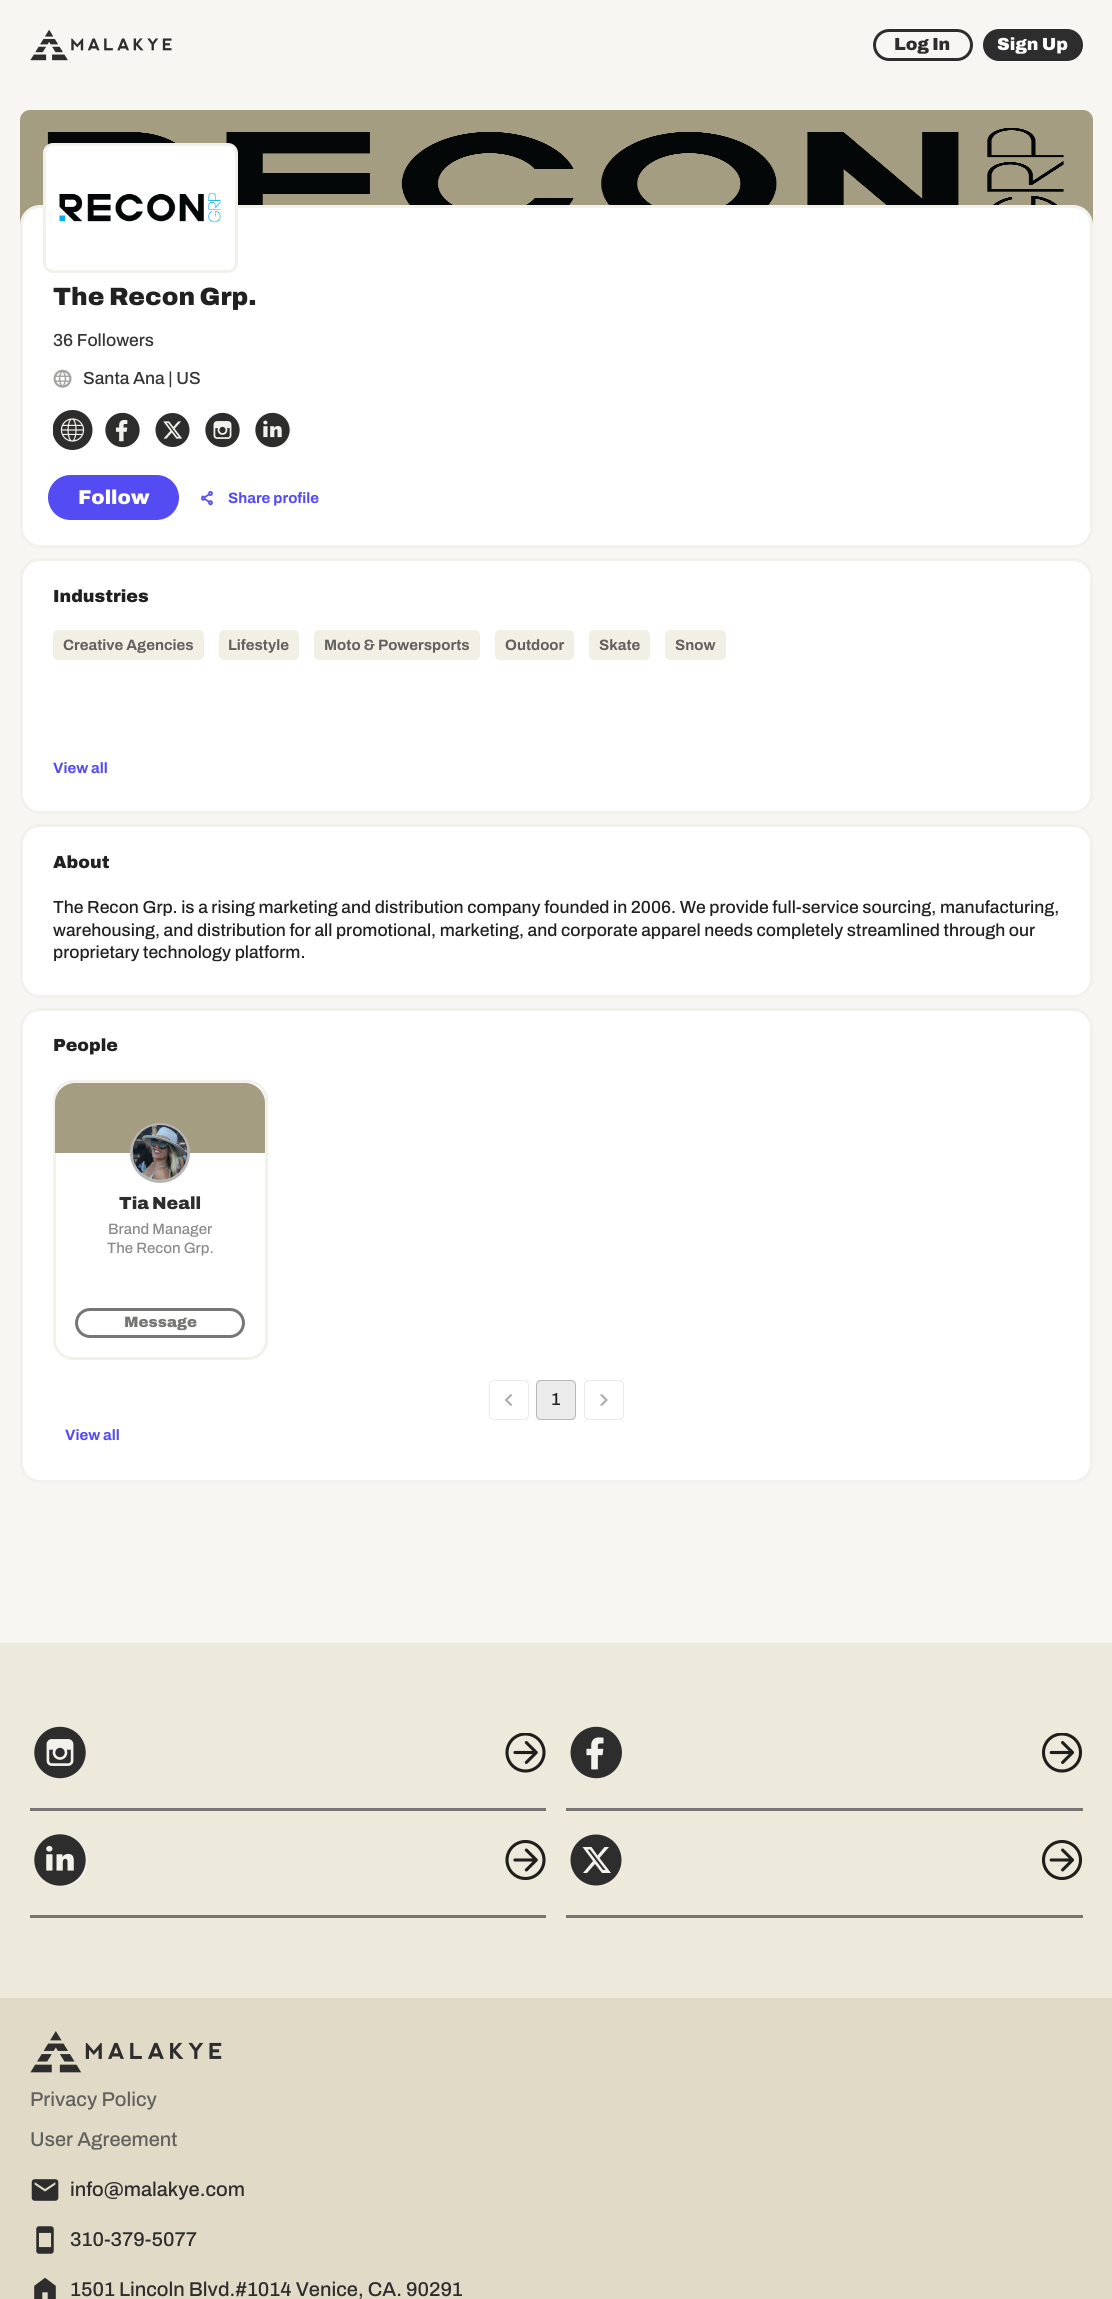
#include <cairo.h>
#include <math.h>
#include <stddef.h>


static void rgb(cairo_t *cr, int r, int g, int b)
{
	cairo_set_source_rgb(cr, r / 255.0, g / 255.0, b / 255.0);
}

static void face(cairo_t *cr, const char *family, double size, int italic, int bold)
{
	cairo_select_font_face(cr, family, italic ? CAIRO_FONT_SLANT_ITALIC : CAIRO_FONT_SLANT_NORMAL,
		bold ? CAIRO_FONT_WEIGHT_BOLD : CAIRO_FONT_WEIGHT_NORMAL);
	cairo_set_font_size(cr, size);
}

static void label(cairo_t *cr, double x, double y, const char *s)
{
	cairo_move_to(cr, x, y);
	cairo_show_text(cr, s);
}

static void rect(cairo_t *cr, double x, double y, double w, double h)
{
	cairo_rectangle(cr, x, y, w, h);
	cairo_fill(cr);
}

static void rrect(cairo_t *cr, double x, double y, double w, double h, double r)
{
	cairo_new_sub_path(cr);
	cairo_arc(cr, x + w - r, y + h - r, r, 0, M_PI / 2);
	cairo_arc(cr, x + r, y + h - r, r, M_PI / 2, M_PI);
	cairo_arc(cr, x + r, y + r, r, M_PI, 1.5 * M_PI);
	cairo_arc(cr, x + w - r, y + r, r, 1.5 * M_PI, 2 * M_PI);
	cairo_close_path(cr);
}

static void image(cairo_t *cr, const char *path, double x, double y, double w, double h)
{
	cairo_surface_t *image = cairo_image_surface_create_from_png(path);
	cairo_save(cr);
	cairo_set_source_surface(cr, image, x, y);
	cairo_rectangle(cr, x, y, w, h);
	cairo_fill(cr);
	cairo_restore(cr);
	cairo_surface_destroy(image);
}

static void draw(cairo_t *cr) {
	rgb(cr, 247, 246, 243);
	cairo_paint(cr);
	image(cr, "image0.png", 30, 29, 142, 32);
	rrect(cr, 874.5, 30.5, 97, 29, 14.5);
	rgb(cr, 45, 45, 45);
	cairo_set_line_width(cr, 3);
	cairo_stroke(cr);
	face(cr, "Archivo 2 SemiBold", 17.5, 0, 0);
	label(cr, 894, 50, "Log In");
	rrect(cr, 983, 29, 100, 32, 16);
	cairo_fill(cr);
	rgb(cr, 255, 255, 255);
	label(cr, 997, 50, "Sign Up");
	rgb(cr, 165, 157, 130);
	rrect(cr, 20, 110, 1073, 185, 10);
	cairo_fill(cr);
	image(cr, "image1.png", 47, 128, 1017, 77);
	rgb(cr, 255, 255, 255);
	rrect(cr, 21.5, 206.5, 1070, 340, 18.5);
	cairo_fill_preserve(cr);
	rgb(cr, 243, 241, 235);
	cairo_stroke(cr);
	face(cr, "Archivo 2 SemiBold", 25, 0, 0);
	rgb(cr, 33, 33, 33);
	label(cr, 53, 305, "The Recon Grp.");
	rgb(cr, 255, 255, 255);
	rrect(cr, 44.5, 144.5, 192, 127, 8.5);
	cairo_fill_preserve(cr);
	rgb(cr, 243, 241, 235);
	cairo_stroke(cr);
	image(cr, "image2.png", 59, 192, 162, 31);
	face(cr, "Archivo SemiBold", 17.5, 0, 0);
	rgb(cr, 54, 54, 54);
	label(cr, 53, 346, "36 Followers");
	image(cr, "image3.png", 53, 369, 19, 19);
	label(cr, 83, 384, "Santa Ana | US");
	image(cr, "image4.png", 53, 410, 40, 40);
	image(cr, "image5.png", 105, 412, 35, 36);
	image(cr, "image6.png", 155, 413, 35, 34);
	image(cr, "image7.png", 205, 412, 35, 36);
	image(cr, "image8.png", 255, 412, 36, 36);
	rgb(cr, 84, 76, 242);
	rrect(cr, 48, 475, 131, 45, 22.5);
	cairo_fill(cr);
	face(cr, "Archivo 2 SemiBold", 20, 0, 0);
	rgb(cr, 255, 255, 255);
	label(cr, 78, 504, "Follow");
	image(cr, "image9.png", 201, 491, 12, 15);
	face(cr, "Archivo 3 SemiBold", 15, 0, 0);
	rgb(cr, 84, 76, 242);
	label(cr, 228, 503, "Share profile");
	rgb(cr, 255, 255, 255);
	rrect(cr, 21.5, 559.5, 1070, 253, 18.5);
	cairo_fill_preserve(cr);
	rgb(cr, 243, 241, 235);
	cairo_stroke(cr);
	face(cr, "Archivo 2 SemiBold", 17.5, 0, 0);
	rgb(cr, 33, 33, 33);
	label(cr, 53, 602, "Industries");
	rgb(cr, 242, 239, 229);
	rrect(cr, 53, 630, 151, 30, 5);
	cairo_fill(cr);
	face(cr, "Archivo 3 SemiBold", 15, 0, 0);
	rgb(cr, 97, 97, 96);
	label(cr, 63, 650, "Creative Agencies");
	rgb(cr, 242, 239, 229);
	rrect(cr, 219, 630, 80, 30, 5);
	cairo_fill(cr);
	rgb(cr, 97, 97, 96);
	label(cr, 228, 650, "Lifestyle");
	rgb(cr, 242, 239, 229);
	rrect(cr, 314, 630, 166, 30, 5);
	cairo_fill(cr);
	rgb(cr, 97, 97, 96);
	label(cr, 324, 650, "Moto & Powersports");
	rgb(cr, 242, 239, 229);
	rrect(cr, 495, 630, 79, 30, 5);
	cairo_fill(cr);
	rgb(cr, 97, 97, 96);
	label(cr, 505, 650, "Outdoor");
	rgb(cr, 242, 239, 229);
	rrect(cr, 589, 630, 61, 30, 5);
	cairo_fill(cr);
	rgb(cr, 97, 97, 96);
	label(cr, 599, 650, "Skate");
	rgb(cr, 242, 239, 229);
	rrect(cr, 665, 630, 61, 30, 5);
	cairo_fill(cr);
	rgb(cr, 97, 97, 96);
	label(cr, 675, 650, "Snow");
	rgb(cr, 84, 76, 242);
	label(cr, 53, 773, "View all");
	rgb(cr, 255, 255, 255);
	rrect(cr, 21.5, 825.5, 1070, 171, 18.5);
	cairo_fill_preserve(cr);
	rgb(cr, 243, 241, 235);
	cairo_stroke(cr);
	face(cr, "Archivo 2 SemiBold", 17.5, 0, 0);
	rgb(cr, 33, 33, 33);
	label(cr, 53, 868, "About");
	face(cr, "Archivo SemiBold", 17.5, 0, 0);
	label(cr, 53, 913, "The Recon Grp. is a rising marketing and distribution company founded in 2006. We provide full-service sourcing, manufacturing,");
	label(cr, 53, 936, "warehousing, and distribution for all promotional, marketing, and corporate apparel needs completely streamlined through our");
	label(cr, 53, 958, "proprietary technology platform.");
	rgb(cr, 255, 255, 255);
	rrect(cr, 21.5, 1009.5, 1070, 472, 18.5);
	cairo_fill_preserve(cr);
	rgb(cr, 243, 241, 235);
	cairo_stroke(cr);
	face(cr, "Archivo 2 SemiBold", 17.5, 0, 0);
	rgb(cr, 33, 33, 33);
	label(cr, 53, 1051, "People");
	rrect(cr, 54.5, 1081.5, 212, 277, 18.5);
	rgb(cr, 243, 241, 235);
	cairo_stroke(cr);
	rgb(cr, 165, 157, 130);
	cairo_new_path(cr);
	cairo_move_to(cr, 75, 1083);
	cairo_line_to(cr, 245, 1083);
	cairo_curve_to(cr, 256, 1083, 265, 1092, 265, 1103);
	cairo_line_to(cr, 265, 1153);
	cairo_line_to(cr, 55, 1153);
	cairo_line_to(cr, 55, 1103);
	cairo_curve_to(cr, 55, 1092, 64, 1083, 75, 1083);
	cairo_close_path(cr);
	cairo_fill(cr);
	cairo_arc(cr, 160, 1153, 28.5, 0, 2 * M_PI);
	rgb(cr, 183, 182, 180);
	cairo_stroke(cr);
	image(cr, "image10.png", 132, 1125, 56, 55);
	rgb(cr, 45, 45, 45);
	label(cr, 119, 1209, "Tia Neall");
	face(cr, "Archivo SemiBold", 15, 0, 0);
	rgb(cr, 140, 139, 138);
	label(cr, 108, 1234, "Brand Manager");
	label(cr, 107, 1253, "The Recon Grp.");
	rrect(cr, 76.5, 1309.5, 167, 27, 13.5);
	rgb(cr, 119, 118, 117);
	cairo_stroke(cr);
	face(cr, "Archivo 2 SemiBold", 15, 0, 0);
	label(cr, 124, 1327, "Message");
	rrect(cr, 489.5, 1380.5, 39, 39, 4.5);
	rgb(cr, 233, 233, 233);
	cairo_set_line_width(cr, 1);
	cairo_stroke(cr);
	image(cr, "image11.png", 504, 1394, 9, 12);
	rgb(cr, 235, 235, 235);
	rrect(cr, 536, 1380, 40, 40, 5);
	cairo_fill(cr);
	rrect(cr, 536.5, 1380.5, 39, 39, 4.5);
	cairo_set_source_rgba(cr, 0, 0, 0, 0.23);
	cairo_stroke(cr);
	face(cr, "Archivo SemiBold", 17.5, 0, 0);
	rgb(cr, 33, 33, 33);
	label(cr, 551, 1405, "1");
	rrect(cr, 584.5, 1380.5, 39, 39, 4.5);
	rgb(cr, 233, 233, 233);
	cairo_stroke(cr);
	image(cr, "image12.png", 600, 1394, 8, 12);
	face(cr, "Archivo 3 SemiBold", 15, 0, 0);
	rgb(cr, 84, 76, 242);
	label(cr, 65, 1440, "View all");
	rgb(cr, 237, 233, 219);
	rect(cr, 0, 1643, 1112, 355);
	rgb(cr, 119, 118, 117);
	rect(cr, 30, 1808, 516, 3);
	image(cr, "image13.png", 34, 1726, 52, 53);
	image(cr, "image14.png", 505, 1733, 41, 40);
	rect(cr, 566, 1808, 517, 3);
	image(cr, "image15.png", 570, 1726, 52, 53);
	image(cr, "image16.png", 1041, 1733, 42, 40);
	rect(cr, 30, 1915, 516, 3);
	image(cr, "image17.png", 34, 1834, 54, 53);
	image(cr, "image18.png", 505, 1840, 41, 40);
	rect(cr, 566, 1915, 517, 3);
	rgb(cr, 45, 45, 45);
	cairo_arc(cr, 596, 1860, 25.5, 0, 2 * M_PI);
	cairo_fill(cr);
	rgb(cr, 243, 241, 235);
	cairo_new_path(cr);
	cairo_move_to(cr, 604.5, 1847);
	cairo_line_to(cr, 609, 1847);
	cairo_line_to(cr, 599.5, 1858);
	cairo_line_to(cr, 611, 1873);
	cairo_line_to(cr, 602, 1873);
	cairo_line_to(cr, 595, 1864);
	cairo_line_to(cr, 587, 1873);
	cairo_line_to(cr, 583, 1873);
	cairo_line_to(cr, 593, 1861);
	cairo_line_to(cr, 582.5, 1847);
	cairo_line_to(cr, 591.5, 1847);
	cairo_line_to(cr, 597.5, 1855.5);
	cairo_close_path(cr);
	cairo_move_to(cr, 603, 1870);
	cairo_line_to(cr, 605.5, 1870);
	cairo_line_to(cr, 590, 1849.5);
	cairo_line_to(cr, 587.5, 1849.5);
	cairo_close_path(cr);
	cairo_fill(cr);
	image(cr, "image19.png", 1041, 1840, 41, 40);
	rgb(cr, 224, 218, 198);
	rect(cr, 0, 1998, 1112, 301);
	image(cr, "image20.png", 30, 2031, 192, 42);
	face(cr, "Archivo SemiBold", 20, 0, 0);
	rgb(cr, 97, 97, 96);
	label(cr, 30, 2106, "Privacy Policy");
	label(cr, 30, 2146, "User Agreement");
	image(cr, "image21.png", 31, 2179, 28, 22);
	rgb(cr, 45, 45, 45);
	label(cr, 70, 2196, "info@malakye.com");
	image(cr, "image22.png", 36, 2226, 18, 28);
	label(cr, 70, 2246, "310-379-5077");
	image(cr, "image23.png", 34, 2277, 22, 22);
	label(cr, 70, 2296, "1501 Lincoln Blvd.#1014 Venice, CA. 90291");
}

int main(void) {
	cairo_surface_t *surface = cairo_image_surface_create(CAIRO_FORMAT_RGB24, 1112, 2299);
	cairo_t *cr = cairo_create(surface);
	cairo_font_options_t *options = cairo_font_options_create();
	cairo_font_options_set_hint_metrics(options, CAIRO_HINT_METRICS_OFF);
	cairo_font_options_set_hint_style(options, CAIRO_HINT_STYLE_NONE);
	cairo_set_font_options(cr, options);
	cairo_set_miter_limit(cr, 4);
	draw(cr);
	cairo_surface_write_to_png(surface, "render.png");
	cairo_font_options_destroy(options);
	cairo_destroy(cr);
	cairo_surface_destroy(surface);
	return 0;
}
